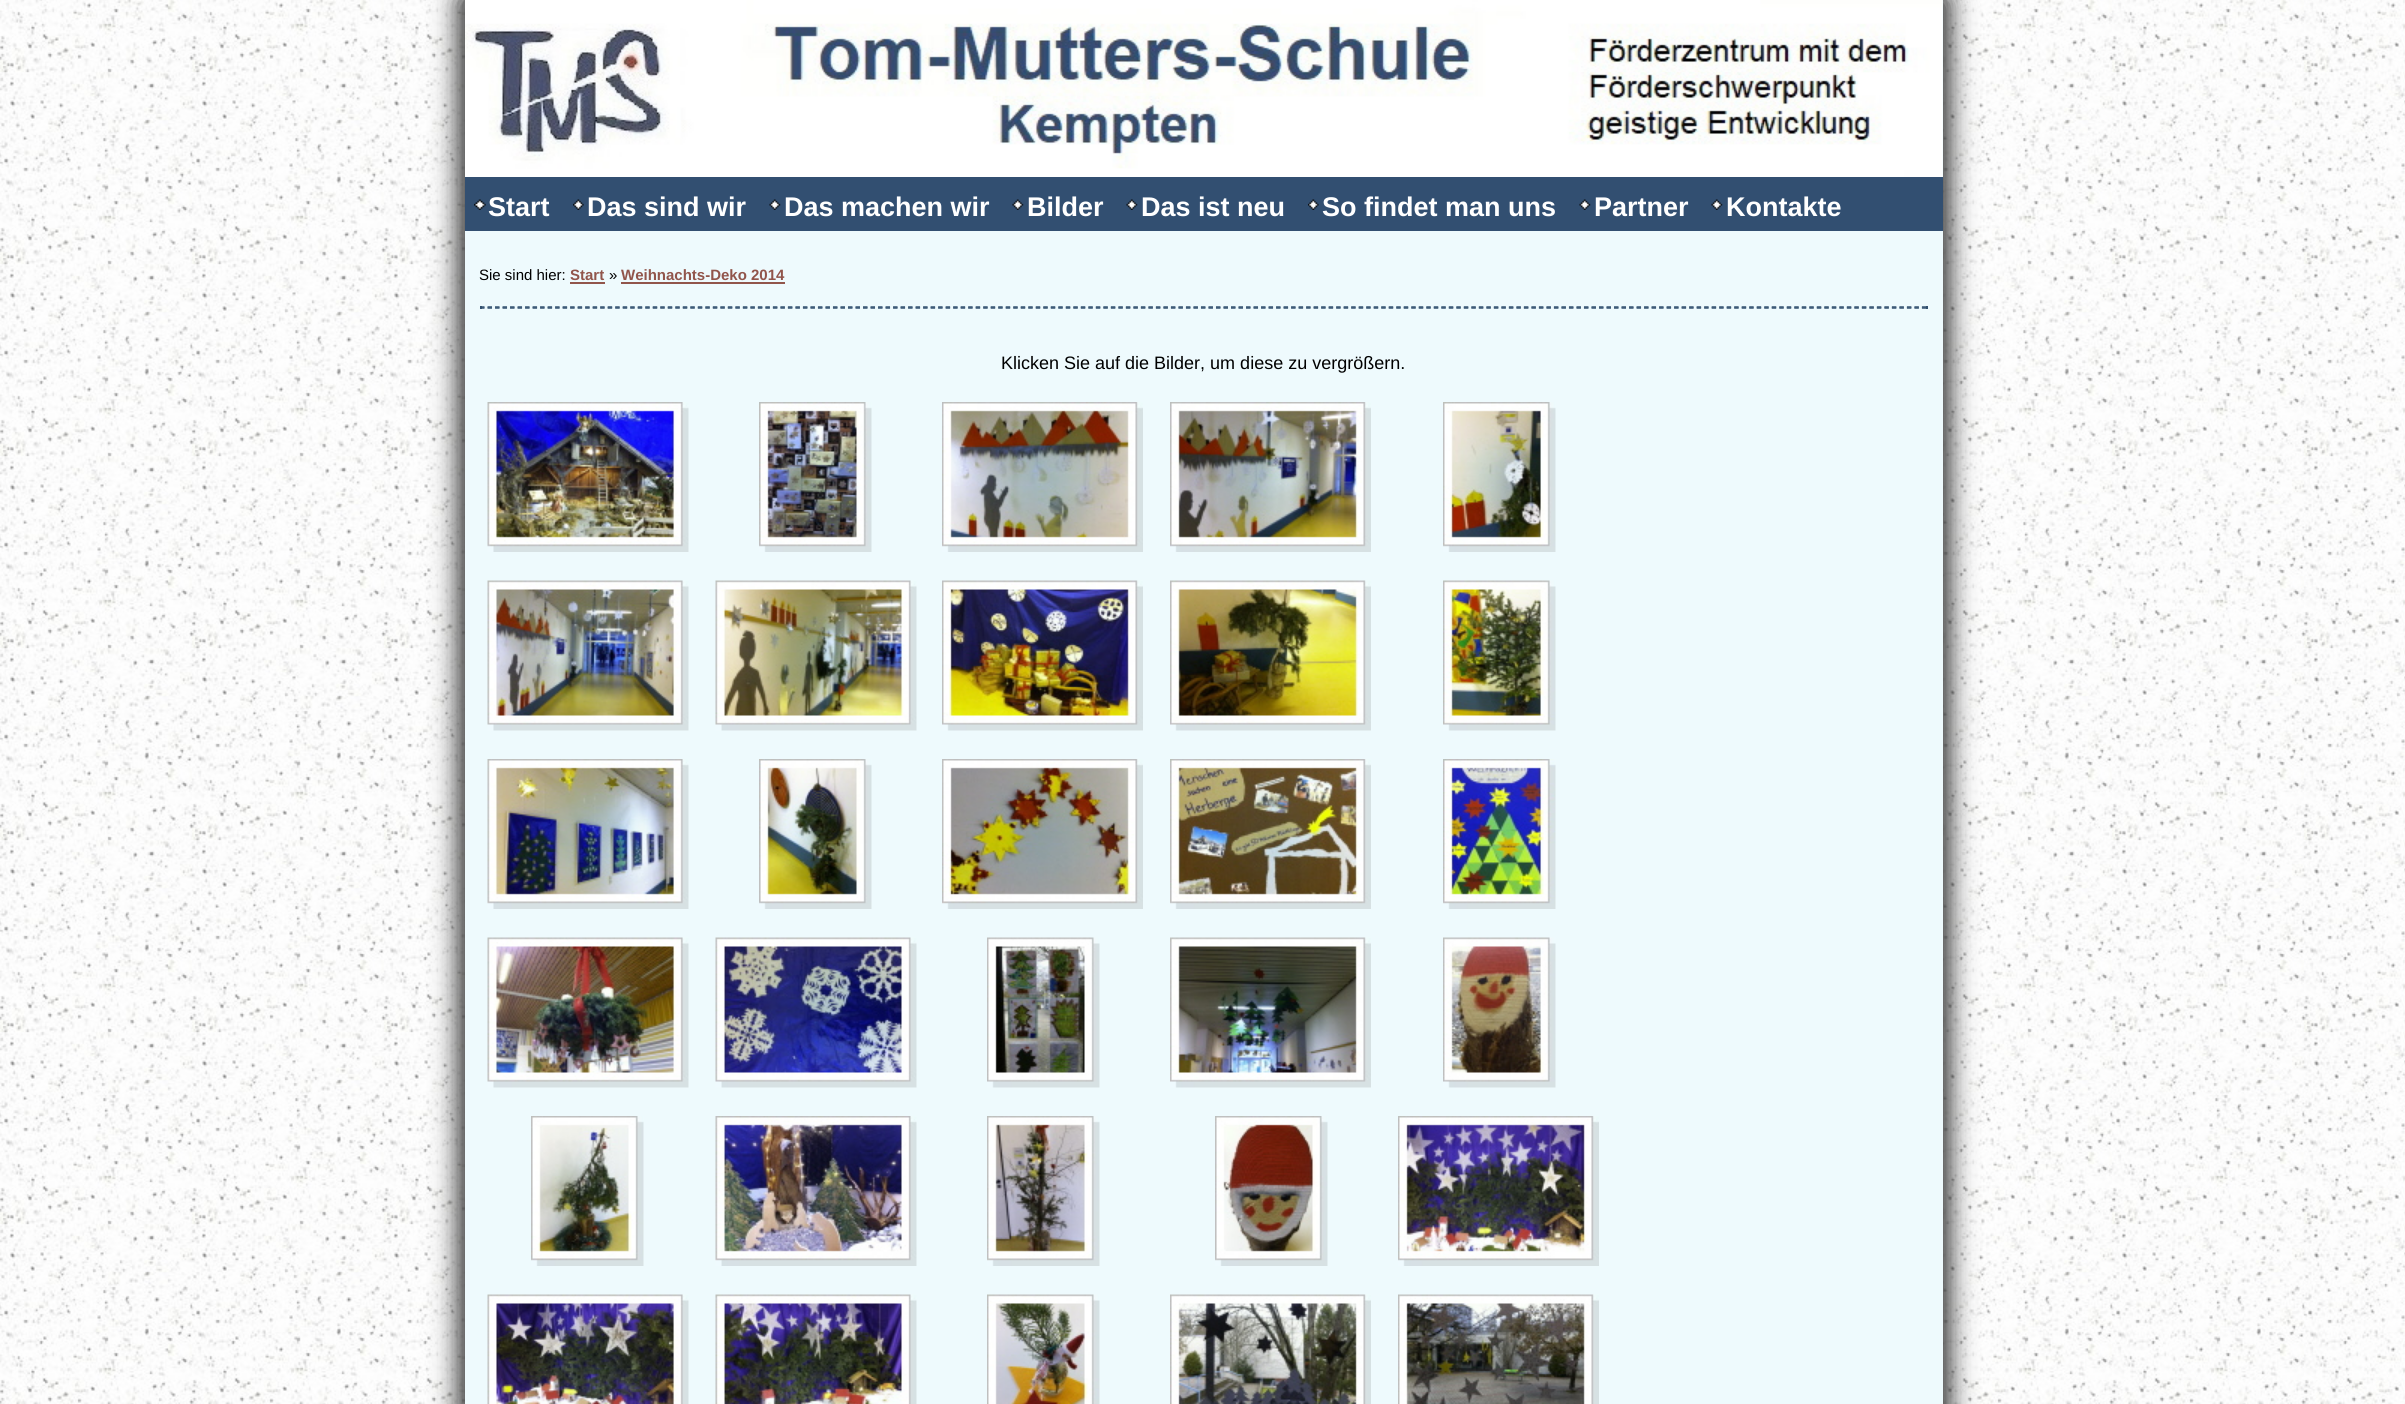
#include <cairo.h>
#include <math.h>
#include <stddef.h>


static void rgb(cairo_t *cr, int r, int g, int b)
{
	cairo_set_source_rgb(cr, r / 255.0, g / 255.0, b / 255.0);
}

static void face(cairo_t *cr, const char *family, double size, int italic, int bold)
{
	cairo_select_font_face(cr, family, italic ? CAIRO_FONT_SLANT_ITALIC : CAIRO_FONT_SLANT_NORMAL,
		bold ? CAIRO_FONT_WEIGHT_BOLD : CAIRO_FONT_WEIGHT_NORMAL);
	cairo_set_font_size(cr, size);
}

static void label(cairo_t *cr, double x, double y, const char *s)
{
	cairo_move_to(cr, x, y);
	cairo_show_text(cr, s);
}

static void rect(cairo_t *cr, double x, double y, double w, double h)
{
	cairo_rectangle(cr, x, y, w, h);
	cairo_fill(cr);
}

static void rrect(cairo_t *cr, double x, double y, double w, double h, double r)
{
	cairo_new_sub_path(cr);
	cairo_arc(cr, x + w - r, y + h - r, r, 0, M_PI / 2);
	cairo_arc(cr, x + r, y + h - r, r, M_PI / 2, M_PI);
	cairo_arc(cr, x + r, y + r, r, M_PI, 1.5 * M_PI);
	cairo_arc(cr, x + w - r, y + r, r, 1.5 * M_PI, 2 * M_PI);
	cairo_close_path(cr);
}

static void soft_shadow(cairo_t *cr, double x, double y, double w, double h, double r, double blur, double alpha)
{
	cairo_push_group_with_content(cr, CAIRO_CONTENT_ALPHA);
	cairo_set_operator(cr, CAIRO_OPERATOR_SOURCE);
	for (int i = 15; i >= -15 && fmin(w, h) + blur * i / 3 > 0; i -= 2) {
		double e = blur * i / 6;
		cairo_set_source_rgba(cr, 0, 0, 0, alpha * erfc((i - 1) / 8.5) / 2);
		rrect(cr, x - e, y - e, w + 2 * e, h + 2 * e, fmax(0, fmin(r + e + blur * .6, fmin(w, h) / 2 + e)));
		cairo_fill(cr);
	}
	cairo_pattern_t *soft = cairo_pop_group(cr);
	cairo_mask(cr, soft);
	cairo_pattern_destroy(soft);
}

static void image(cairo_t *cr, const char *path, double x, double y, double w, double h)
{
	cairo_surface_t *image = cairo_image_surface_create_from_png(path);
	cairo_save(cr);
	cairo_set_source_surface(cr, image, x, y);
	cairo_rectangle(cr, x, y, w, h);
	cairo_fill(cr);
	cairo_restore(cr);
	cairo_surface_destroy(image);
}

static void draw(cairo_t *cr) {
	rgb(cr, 255, 255, 255);
	cairo_paint(cr);
	image(cr, "image0.png", 0, 0, 2405, 1404);
	rgb(cr, 51, 51, 51);
	soft_shadow(cr, 467, 2, 1477, 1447, 0, 15, 1);
	soft_shadow(cr, 464, -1, 1477, 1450, 0, 15, 1);
	rgb(cr, 238, 250, 253);
	rect(cr, 465, 0, 1478, 1404);
	image(cr, "image1.png", 465, 0, 1478, 177);
	rgb(cr, 50, 79, 113);
	rect(cr, 465, 177, 1478, 54);
	image(cr, "image2.png", 474, 199, 12, 11);
	face(cr, "Liberation Sans", 27, 0, 1);
	rgb(cr, 255, 255, 255);
	label(cr, 488, 216, "Start");
	image(cr, "image3.png", 573, 199, 11, 11);
	label(cr, 587, 216, "Das sind wir");
	image(cr, "image4.png", 769, 199, 12, 11);
	label(cr, 784, 216, "Das machen wir");
	image(cr, "image4.png", 1012, 199, 12, 11);
	label(cr, 1027, 216, "Bilder");
	image(cr, "image5.png", 1126, 199, 12, 11);
	label(cr, 1141, 216, "Das ist neu");
	image(cr, "image6.png", 1308, 199, 11, 11);
	label(cr, 1322, 216, "So findet man uns");
	image(cr, "image4.png", 1579, 199, 12, 11);
	label(cr, 1594, 216, "Partner");
	image(cr, "image4.png", 1711, 199, 12, 11);
	label(cr, 1726, 216, "Kontakte");
	face(cr, "Liberation Sans", 15, 0, 0);
	rgb(cr, 0, 0, 0);
	label(cr, 479, 280, "Sie sind hier:");
	face(cr, "Liberation Sans", 15, 0, 1);
	rgb(cr, 145, 85, 75);
	label(cr, 570, 280, "Start");
	rect(cr, 570, 282, 35, 2);
	face(cr, "Liberation Sans", 15, 0, 0);
	rgb(cr, 0, 0, 0);
	label(cr, 609, 280, "»");
	face(cr, "Liberation Sans", 15, 0, 1);
	rgb(cr, 145, 85, 75);
	label(cr, 621, 280, "Weihnachts-Deko 2014");
	rect(cr, 621, 282, 164, 2);
	cairo_new_path(cr);
	cairo_move_to(cr, 480, 307);
	cairo_line_to(cr, 1927.5, 307);
	rgb(cr, 50, 81, 112);
	cairo_set_line_width(cr, 1.5);
	cairo_set_dash(cr, (double[]){4.5, 3.01}, 2, 0);
	cairo_stroke(cr);
	rect(cr, 1926, 306, 2, 3);
	cairo_new_path(cr);
	cairo_move_to(cr, 480, 308);
	cairo_line_to(cr, 1927.5, 308);
	cairo_stroke(cr);
	rect(cr, 480, 306, 2, 3);
	face(cr, "Liberation Sans", 18, 0, 0);
	rgb(cr, 0, 0, 0);
	label(cr, 1001, 369, "Klicken Sie auf die Bilder, um diese zu vergrößern.");
	image(cr, "image7.png", 487, 402, 202, 150);
	image(cr, "image8.png", 759, 402, 113, 150);
	image(cr, "image9.png", 942, 402, 201, 150);
	image(cr, "image10.png", 1170, 402, 201, 150);
	image(cr, "image11.png", 1443, 402, 113, 150);
	image(cr, "image12.png", 487, 580, 202, 151);
	image(cr, "image13.png", 715, 580, 202, 151);
	image(cr, "image14.png", 942, 580, 201, 151);
	image(cr, "image15.png", 1170, 580, 201, 151);
	image(cr, "image16.png", 1443, 580, 113, 151);
	image(cr, "image17.png", 487, 759, 202, 150);
	image(cr, "image18.png", 759, 759, 113, 150);
	image(cr, "image19.png", 942, 759, 201, 150);
	image(cr, "image20.png", 1170, 759, 201, 150);
	image(cr, "image21.png", 1443, 759, 113, 150);
	image(cr, "image22.png", 487, 937, 202, 151);
	image(cr, "image23.png", 715, 937, 202, 151);
	image(cr, "image24.png", 987, 937, 113, 151);
	image(cr, "image25.png", 1170, 937, 201, 151);
	image(cr, "image26.png", 1443, 937, 113, 151);
	image(cr, "image27.png", 531, 1116, 113, 150);
	image(cr, "image28.png", 715, 1116, 202, 150);
	image(cr, "image29.png", 987, 1116, 113, 150);
	image(cr, "image30.png", 1215, 1116, 113, 150);
	image(cr, "image31.png", 1398, 1116, 201, 150);
	image(cr, "image32.png", 487, 1294, 202, 110);
	image(cr, "image33.png", 715, 1294, 202, 110);
	image(cr, "image34.png", 987, 1294, 113, 110);
	image(cr, "image35.png", 1170, 1294, 201, 110);
	image(cr, "image36.png", 1398, 1294, 201, 110);
}

int main(void) {
	cairo_surface_t *surface = cairo_image_surface_create(CAIRO_FORMAT_RGB24, 2405, 1404);
	cairo_t *cr = cairo_create(surface);
	cairo_font_options_t *options = cairo_font_options_create();
	cairo_font_options_set_hint_metrics(options, CAIRO_HINT_METRICS_OFF);
	cairo_font_options_set_hint_style(options, CAIRO_HINT_STYLE_NONE);
	cairo_set_font_options(cr, options);
	cairo_set_miter_limit(cr, 4);
	draw(cr);
	cairo_surface_write_to_png(surface, "render.png");
	cairo_font_options_destroy(options);
	cairo_destroy(cr);
	cairo_surface_destroy(surface);
	return 0;
}
